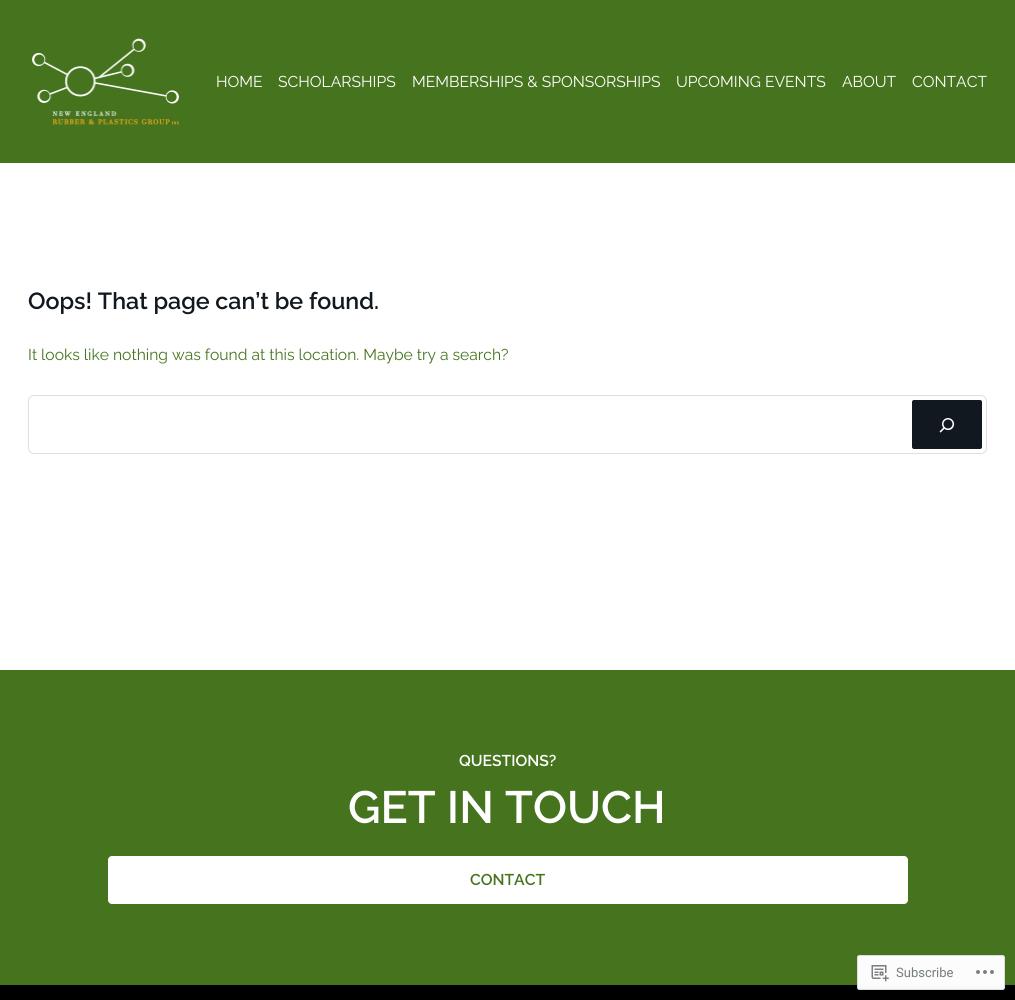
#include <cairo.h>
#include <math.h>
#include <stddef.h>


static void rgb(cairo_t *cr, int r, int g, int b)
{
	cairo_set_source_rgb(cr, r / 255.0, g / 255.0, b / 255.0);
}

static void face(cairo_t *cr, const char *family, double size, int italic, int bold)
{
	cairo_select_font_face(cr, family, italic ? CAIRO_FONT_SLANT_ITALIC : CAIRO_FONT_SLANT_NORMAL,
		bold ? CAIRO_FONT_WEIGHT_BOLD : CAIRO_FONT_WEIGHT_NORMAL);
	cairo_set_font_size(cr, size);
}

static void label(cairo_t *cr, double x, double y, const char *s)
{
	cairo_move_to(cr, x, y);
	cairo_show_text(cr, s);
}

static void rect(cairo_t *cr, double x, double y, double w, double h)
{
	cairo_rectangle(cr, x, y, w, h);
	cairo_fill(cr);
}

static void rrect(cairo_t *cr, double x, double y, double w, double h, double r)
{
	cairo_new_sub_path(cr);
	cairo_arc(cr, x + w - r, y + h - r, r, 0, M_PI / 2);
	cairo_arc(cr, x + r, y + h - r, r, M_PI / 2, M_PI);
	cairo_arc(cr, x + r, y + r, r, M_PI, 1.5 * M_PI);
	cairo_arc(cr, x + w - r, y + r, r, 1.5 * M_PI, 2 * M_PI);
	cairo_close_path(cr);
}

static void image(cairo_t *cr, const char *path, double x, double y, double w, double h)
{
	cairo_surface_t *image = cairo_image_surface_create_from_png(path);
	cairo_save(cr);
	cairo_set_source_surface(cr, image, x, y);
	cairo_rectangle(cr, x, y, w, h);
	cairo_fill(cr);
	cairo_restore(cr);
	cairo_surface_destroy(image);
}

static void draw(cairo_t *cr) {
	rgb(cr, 255, 255, 255);
	cairo_paint(cr);
	rgb(cr, 70, 116, 30);
	rect(cr, 0, 0, 1015, 163);
	image(cr, "image0.png", 32, 38, 147, 87);
	face(cr, "Raleway", 15.65, 0, 0);
	rgb(cr, 255, 255, 255);
	label(cr, 216, 87, "HOME");
	label(cr, 278, 87, "SCHOLARSHIPS");
	label(cr, 412, 87, "MEMBERSHIPS & SPONSORSHIPS");
	label(cr, 676, 87, "UPCOMING EVENTS");
	label(cr, 842, 87, "ABOUT");
	label(cr, 912, 87, "CONTACT");
	face(cr, "Raleway SemiBold", 23.25, 0, 0);
	rgb(cr, 17, 24, 31);
	label(cr, 28, 309, "Oops! That page can’t be found.");
	face(cr, "Raleway", 15.65, 0, 0);
	rgb(cr, 70, 116, 30);
	label(cr, 28, 360, "It looks like nothing was found at this location. Maybe try a search?");
	rrect(cr, 28.5, 395.5, 958, 58, 5.5);
	rgb(cr, 223, 223, 223);
	cairo_set_line_width(cr, 1);
	cairo_stroke(cr);
	rgb(cr, 17, 24, 31);
	rrect(cr, 912, 400, 70, 49, 2);
	cairo_fill(cr);
	image(cr, "image1.png", 939, 418, 16, 15);
	rgb(cr, 70, 116, 30);
	rect(cr, 0, 670, 1015, 315);
	face(cr, "Raleway SemiBold", 15.65, 0, 0);
	rgb(cr, 255, 255, 255);
	label(cr, 459, 766, "QUESTIONS?");
	face(cr, "Raleway SemiBold", 45.25, 0, 0);
	label(cr, 348, 823, "GET IN TOUCH");
	rrect(cr, 108, 856, 800, 48, 4);
	cairo_fill(cr);
	face(cr, "Raleway SemiBold", 15.65, 0, 0);
	rgb(cr, 70, 116, 30);
	label(cr, 470, 885, "CONTACT");
	rgb(cr, 0, 0, 0);
	rect(cr, 0, 985, 1015, 15);
	cairo_set_source_rgba(cr, 1, 1, 1, 0.98);
	rrect(cr, 857, 955, 148, 35, 3);
	cairo_fill(cr);
	rrect(cr, 857.5, 955.5, 147, 34, 2.5);
	cairo_set_source_rgba(cr, 0.863, 0.863, 0.871, 0.98);
	cairo_stroke(cr);
	image(cr, "image2.png", 871, 965, 18, 17);
	face(cr, "Roboto", 13, 0, 0);
	rgb(cr, 119, 124, 128);
	label(cr, 896, 977, "Subscribe");
	image(cr, "image3.png", 976, 970, 18, 4);
}

int main(void) {
	cairo_surface_t *surface = cairo_image_surface_create(CAIRO_FORMAT_RGB24, 1015, 1000);
	cairo_t *cr = cairo_create(surface);
	cairo_font_options_t *options = cairo_font_options_create();
	cairo_font_options_set_hint_metrics(options, CAIRO_HINT_METRICS_OFF);
	cairo_font_options_set_hint_style(options, CAIRO_HINT_STYLE_NONE);
	cairo_set_font_options(cr, options);
	cairo_set_miter_limit(cr, 4);
	draw(cr);
	cairo_surface_write_to_png(surface, "render.png");
	cairo_font_options_destroy(options);
	cairo_destroy(cr);
	cairo_surface_destroy(surface);
	return 0;
}
